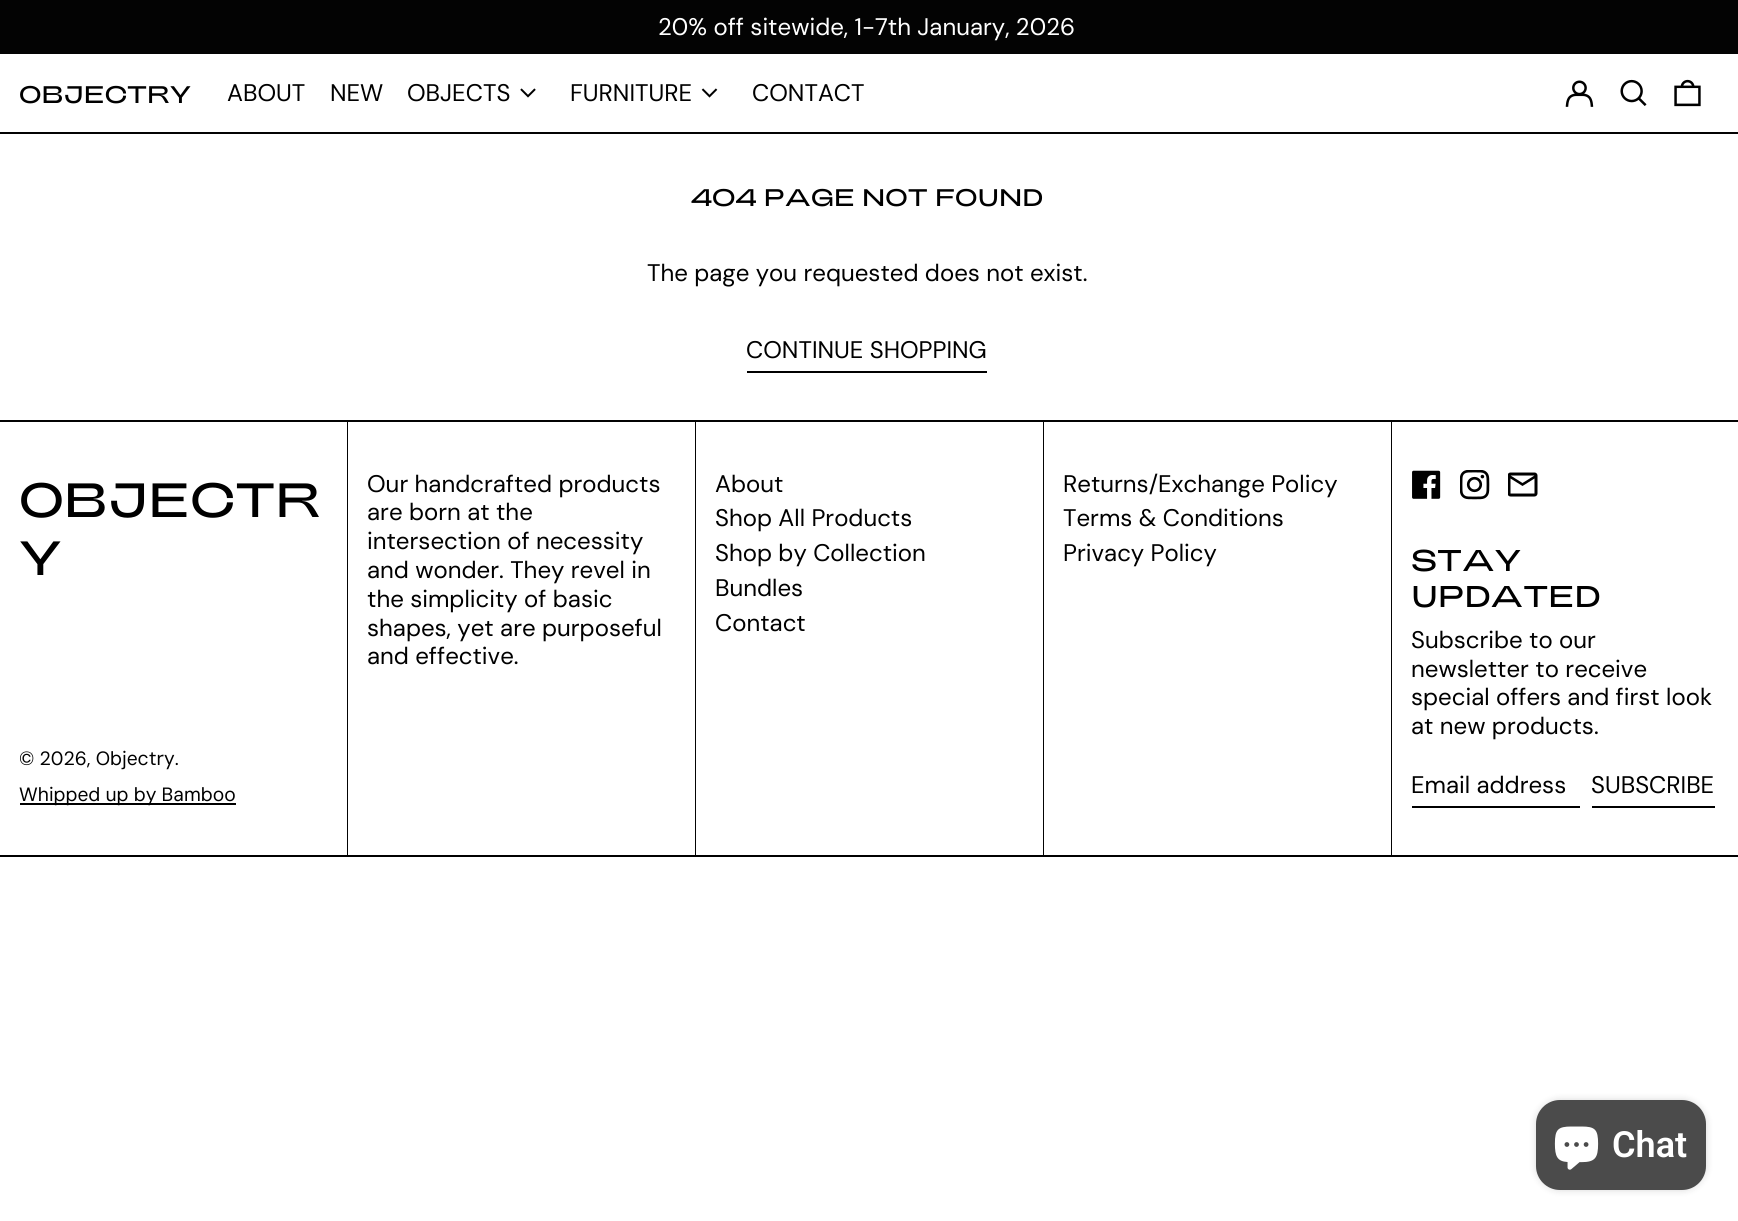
#include <cairo.h>
#include <math.h>
#include <stddef.h>


static void rgb(cairo_t *cr, int r, int g, int b)
{
	cairo_set_source_rgb(cr, r / 255.0, g / 255.0, b / 255.0);
}

static void face(cairo_t *cr, const char *family, double size, int italic, int bold)
{
	cairo_select_font_face(cr, family, italic ? CAIRO_FONT_SLANT_ITALIC : CAIRO_FONT_SLANT_NORMAL,
		bold ? CAIRO_FONT_WEIGHT_BOLD : CAIRO_FONT_WEIGHT_NORMAL);
	cairo_set_font_size(cr, size);
}

static void label(cairo_t *cr, double x, double y, const char *s)
{
	cairo_move_to(cr, x, y);
	cairo_show_text(cr, s);
}

static void rect(cairo_t *cr, double x, double y, double w, double h)
{
	cairo_rectangle(cr, x, y, w, h);
	cairo_fill(cr);
}

static void rrect(cairo_t *cr, double x, double y, double w, double h, double r)
{
	cairo_new_sub_path(cr);
	cairo_arc(cr, x + w - r, y + h - r, r, 0, M_PI / 2);
	cairo_arc(cr, x + r, y + h - r, r, M_PI / 2, M_PI);
	cairo_arc(cr, x + r, y + r, r, M_PI, 1.5 * M_PI);
	cairo_arc(cr, x + w - r, y + r, r, 1.5 * M_PI, 2 * M_PI);
	cairo_close_path(cr);
}

static void soft_shadow(cairo_t *cr, double x, double y, double w, double h, double r, double blur, double alpha)
{
	cairo_push_group_with_content(cr, CAIRO_CONTENT_ALPHA);
	cairo_set_operator(cr, CAIRO_OPERATOR_SOURCE);
	for (int i = 15; i >= -15 && fmin(w, h) + blur * i / 3 > 0; i -= 2) {
		double e = blur * i / 6;
		cairo_set_source_rgba(cr, 0, 0, 0, alpha * erfc((i - 1) / 8.5) / 2);
		rrect(cr, x - e, y - e, w + 2 * e, h + 2 * e, fmax(0, fmin(r + e + blur * .6, fmin(w, h) / 2 + e)));
		cairo_fill(cr);
	}
	cairo_pattern_t *soft = cairo_pop_group(cr);
	cairo_mask(cr, soft);
	cairo_pattern_destroy(soft);
}

static void image(cairo_t *cr, const char *path, double x, double y, double w, double h)
{
	cairo_surface_t *image = cairo_image_surface_create_from_png(path);
	cairo_save(cr);
	cairo_set_source_surface(cr, image, x, y);
	cairo_rectangle(cr, x, y, w, h);
	cairo_fill(cr);
	cairo_restore(cr);
	cairo_surface_destroy(image);
}

static void draw(cairo_t *cr) {
	rgb(cr, 255, 255, 255);
	cairo_paint(cr);
	rgb(cr, 3, 3, 3);
	rect(cr, 0, 0, 1738, 54);
	face(cr, "DM Sans", 24, 0, 0);
	rgb(cr, 255, 255, 255);
	label(cr, 658, 35, "20% off sitewide, 1-7th January, 2026");
	rgb(cr, 3, 3, 3);
	rect(cr, 0, 132, 1738, 2);
	face(cr, "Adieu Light", 24, 0, 0);
	rgb(cr, 0, 0, 0);
	label(cr, 19, 103, "OBJECTRY");
	face(cr, "DM Sans", 24, 0, 0);
	label(cr, 227, 101, "ABOUT");
	label(cr, 330, 101, "NEW");
	label(cr, 407, 101, "OBJECTS");
	image(cr, "image0.png", 520, 88, 16, 10);
	label(cr, 570, 101, "FURNITURE");
	image(cr, "image1.png", 701, 88, 17, 10);
	label(cr, 752, 101, "CONTACT");
	image(cr, "image2.png", 1565, 80, 29, 27);
	image(cr, "image3.png", 1620, 79, 27, 27);
	image(cr, "image4.png", 1674, 79, 27, 28);
	face(cr, "Adieu Light", 24, 0, 0);
	label(cr, 691, 206, "404 PAGE NOT FOUND");
	face(cr, "DM Sans", 24, 0, 0);
	label(cr, 647, 281, "The page you requested does not exist.");
	rect(cr, 747, 371, 240, 2);
	label(cr, 746, 358, "CONTINUE SHOPPING");
	rgb(cr, 3, 3, 3);
	rect(cr, 0, 420, 1738, 2);
	rect(cr, 347, 422, 1045, 433);
	face(cr, "Adieu Light", 48, 0, 0);
	rgb(cr, 0, 0, 0);
	label(cr, 19, 517, "OBJECTR");
	label(cr, 19, 575, "Y");
	face(cr, "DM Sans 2", 19.25, 0, 0);
	label(cr, 19, 765, "© 2026, Objectry.");
	rect(cr, 20, 803, 216, 2);
	label(cr, 19, 801, "Whipped up by Bamboo");
	rgb(cr, 255, 255, 255);
	rect(cr, 348, 422, 347, 433);
	face(cr, "DM Sans", 24, 0, 0);
	rgb(cr, 0, 0, 0);
	label(cr, 367, 492, "Our handcrafted products");
	label(cr, 367, 520, "are born at the");
	label(cr, 367, 549, "intersection of necessity");
	label(cr, 367, 578, "and wonder. They revel in");
	label(cr, 367, 607, "the simplicity of basic");
	label(cr, 367, 636, "shapes, yet are purposeful");
	label(cr, 367, 664, "and effective.");
	rgb(cr, 255, 255, 255);
	rect(cr, 696, 422, 347, 433);
	rgb(cr, 0, 0, 0);
	label(cr, 715, 492, "About");
	label(cr, 715, 526, "Shop All Products");
	label(cr, 715, 561, "Shop by Collection");
	label(cr, 715, 596, "Bundles");
	label(cr, 715, 631, "Contact");
	rgb(cr, 255, 255, 255);
	rect(cr, 1044, 422, 347, 433);
	rgb(cr, 0, 0, 0);
	label(cr, 1063, 492, "Returns/Exchange Policy");
	label(cr, 1063, 526, "Terms & Conditions");
	label(cr, 1063, 561, "Privacy Policy");
	image(cr, "image5.png", 1412, 470, 29, 29);
	image(cr, "image6.png", 1460, 470, 30, 30);
	image(cr, "image7.png", 1508, 472, 30, 25);
	face(cr, "Adieu Light", 30, 0, 0);
	label(cr, 1411, 571, "STAY");
	label(cr, 1411, 607, "UPDATED");
	face(cr, "DM Sans", 24, 0, 0);
	label(cr, 1411, 648, "Subscribe to our");
	label(cr, 1411, 677, "newsletter to receive");
	label(cr, 1411, 705, "special offers and first look");
	label(cr, 1411, 734, "at new products.");
	rect(cr, 1412, 806, 168, 2);
	label(cr, 1411, 793, "Email address");
	rect(cr, 1592, 806, 123, 2);
	label(cr, 1591, 793, "SUBSCRIBE");
	rect(cr, 0, 855, 1738, 2);
	rgb(cr, 0, 0, 0);
	soft_shadow(cr, 1536, 1100, 170, 90, 24, 4, 0.15);
	rgb(cr, 75, 75, 75);
	rrect(cr, 1536, 1100, 170, 90, 24);
	cairo_fill(cr);
	image(cr, "image8.png", 1554, 1126, 45, 44);
	face(cr, "Roboto SemiBold", 36, 0, 0);
	rgb(cr, 255, 255, 255);
	label(cr, 1612, 1157, "Chat");
}

int main(void) {
	cairo_surface_t *surface = cairo_image_surface_create(CAIRO_FORMAT_RGB24, 1738, 1221);
	cairo_t *cr = cairo_create(surface);
	cairo_font_options_t *options = cairo_font_options_create();
	cairo_font_options_set_hint_metrics(options, CAIRO_HINT_METRICS_OFF);
	cairo_font_options_set_hint_style(options, CAIRO_HINT_STYLE_NONE);
	cairo_set_font_options(cr, options);
	cairo_set_miter_limit(cr, 4);
	draw(cr);
	cairo_surface_write_to_png(surface, "render.png");
	cairo_font_options_destroy(options);
	cairo_destroy(cr);
	cairo_surface_destroy(surface);
	return 0;
}
